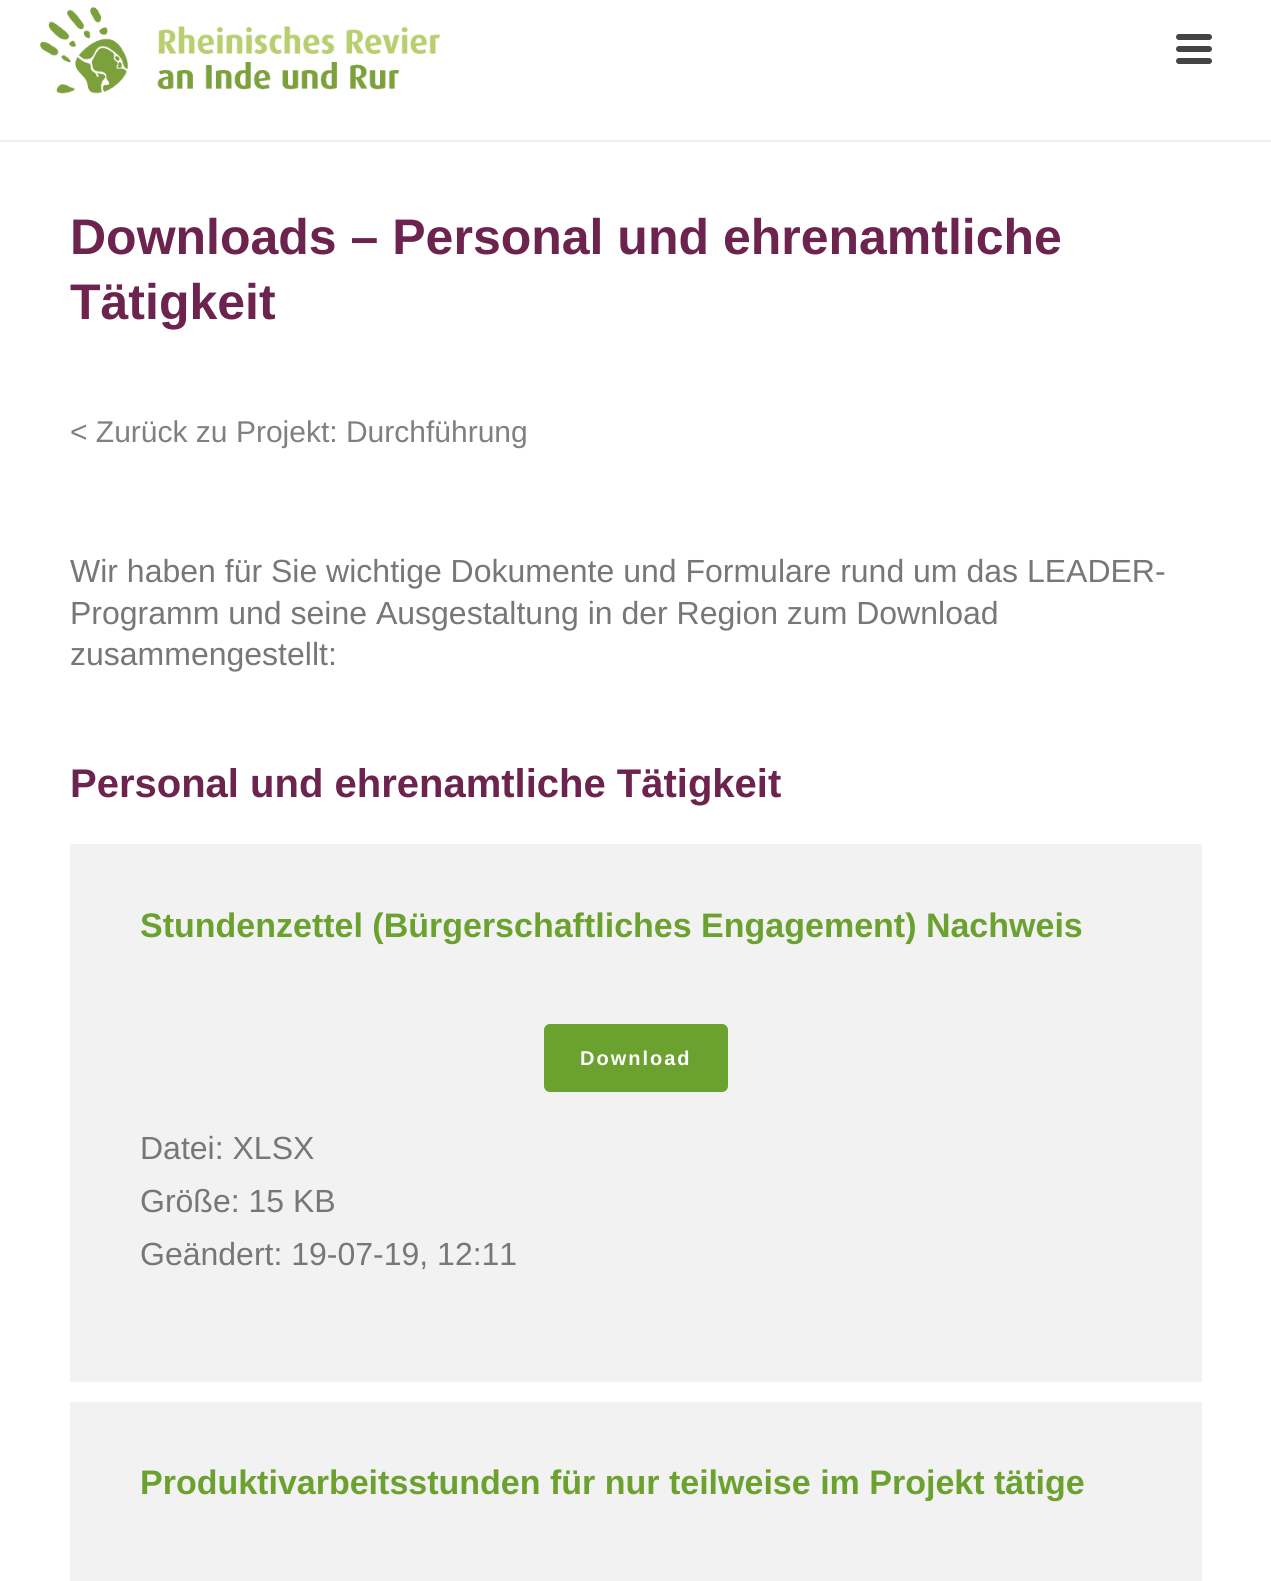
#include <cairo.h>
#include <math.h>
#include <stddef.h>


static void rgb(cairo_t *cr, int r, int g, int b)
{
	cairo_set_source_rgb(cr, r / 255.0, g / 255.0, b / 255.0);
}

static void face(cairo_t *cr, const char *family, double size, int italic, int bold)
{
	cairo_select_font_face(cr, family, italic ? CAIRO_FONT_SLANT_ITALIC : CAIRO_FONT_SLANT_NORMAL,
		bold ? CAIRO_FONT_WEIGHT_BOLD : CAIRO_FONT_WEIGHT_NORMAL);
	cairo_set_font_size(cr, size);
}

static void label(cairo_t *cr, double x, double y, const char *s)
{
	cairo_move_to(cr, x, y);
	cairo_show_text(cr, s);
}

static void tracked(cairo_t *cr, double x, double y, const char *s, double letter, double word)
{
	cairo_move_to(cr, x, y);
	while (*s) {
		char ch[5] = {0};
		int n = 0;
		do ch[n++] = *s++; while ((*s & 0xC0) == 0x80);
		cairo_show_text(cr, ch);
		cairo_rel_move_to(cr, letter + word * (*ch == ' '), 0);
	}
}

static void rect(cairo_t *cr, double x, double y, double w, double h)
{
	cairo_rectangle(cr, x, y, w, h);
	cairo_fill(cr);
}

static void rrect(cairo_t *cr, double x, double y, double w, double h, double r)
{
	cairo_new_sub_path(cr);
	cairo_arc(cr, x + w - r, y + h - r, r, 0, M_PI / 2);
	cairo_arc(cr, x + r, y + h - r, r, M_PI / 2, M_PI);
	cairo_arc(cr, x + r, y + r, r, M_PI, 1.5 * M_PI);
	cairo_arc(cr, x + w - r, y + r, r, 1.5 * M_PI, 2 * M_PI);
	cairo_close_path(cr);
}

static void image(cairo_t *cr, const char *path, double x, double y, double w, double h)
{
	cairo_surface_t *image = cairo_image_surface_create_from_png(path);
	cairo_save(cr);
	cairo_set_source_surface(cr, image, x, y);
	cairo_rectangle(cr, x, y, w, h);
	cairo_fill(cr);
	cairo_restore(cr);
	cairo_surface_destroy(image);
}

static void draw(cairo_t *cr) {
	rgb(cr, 255, 255, 255);
	cairo_paint(cr);
	rgb(cr, 237, 237, 237);
	rect(cr, 0, 140, 1271, 2);
	image(cr, "image0.png", 40, 7, 400, 87);
	rgb(cr, 68, 68, 68);
	rrect(cr, 1176, 34, 36, 6, 3);
	cairo_fill(cr);
	rrect(cr, 1176, 46, 36, 6, 3);
	cairo_fill(cr);
	rrect(cr, 1176, 58, 36, 6, 3);
	cairo_fill(cr);
	face(cr, "Liberation Sans", 50, 0, 1);
	rgb(cr, 108, 35, 78);
	label(cr, 70, 254, "Downloads – Personal und ehrenamtliche");
	label(cr, 70, 319, "Tätigkeit");
	face(cr, "Liberation Sans", 30, 0, 0);
	rgb(cr, 128, 128, 128);
	label(cr, 70, 442, "< Zurück zu Projekt: Durchführung");
	face(cr, "Liberation Sans", 32, 0, 0);
	rgb(cr, 119, 119, 119);
	label(cr, 70, 582, "Wir haben für Sie wichtige Dokumente und Formulare rund um das LEADER-");
	label(cr, 70, 624, "Programm und seine Ausgestaltung in der Region zum Download");
	label(cr, 70, 665, "zusammengestellt:");
	face(cr, "Liberation Sans", 40, 0, 1);
	rgb(cr, 108, 35, 78);
	label(cr, 70, 797, "Personal und ehrenamtliche Tätigkeit");
	rgb(cr, 242, 242, 242);
	rect(cr, 70, 844, 1132, 538);
	face(cr, "Liberation Sans", 34, 0, 1);
	rgb(cr, 107, 161, 47);
	label(cr, 140, 937, "Stundenzettel (Bürgerschaftliches Engagement) Nachweis");
	rrect(cr, 544, 1024, 184, 68, 6);
	cairo_fill(cr);
	face(cr, "Liberation Sans", 20, 0, 1);
	rgb(cr, 255, 255, 255);
	tracked(cr, 580, 1065, "Download", 2, 0);
	face(cr, "Liberation Sans", 32, 0, 0);
	rgb(cr, 119, 119, 119);
	label(cr, 140, 1159, "Datei: XLSX");
	label(cr, 140, 1212, "Größe: 15 KB");
	label(cr, 140, 1265, "Geändert: 19-07-19, 12:11");
	rgb(cr, 242, 242, 242);
	rect(cr, 70, 1402, 1132, 179);
	face(cr, "Liberation Sans", 34, 0, 1);
	rgb(cr, 107, 161, 47);
	label(cr, 140, 1494, "Produktivarbeitsstunden für nur teilweise im Projekt tätige");
}

int main(void) {
	cairo_surface_t *surface = cairo_image_surface_create(CAIRO_FORMAT_RGB24, 1271, 1581);
	cairo_t *cr = cairo_create(surface);
	cairo_font_options_t *options = cairo_font_options_create();
	cairo_font_options_set_hint_metrics(options, CAIRO_HINT_METRICS_OFF);
	cairo_font_options_set_hint_style(options, CAIRO_HINT_STYLE_NONE);
	cairo_set_font_options(cr, options);
	cairo_set_miter_limit(cr, 4);
	draw(cr);
	cairo_surface_write_to_png(surface, "render.png");
	cairo_font_options_destroy(options);
	cairo_destroy(cr);
	cairo_surface_destroy(surface);
	return 0;
}
